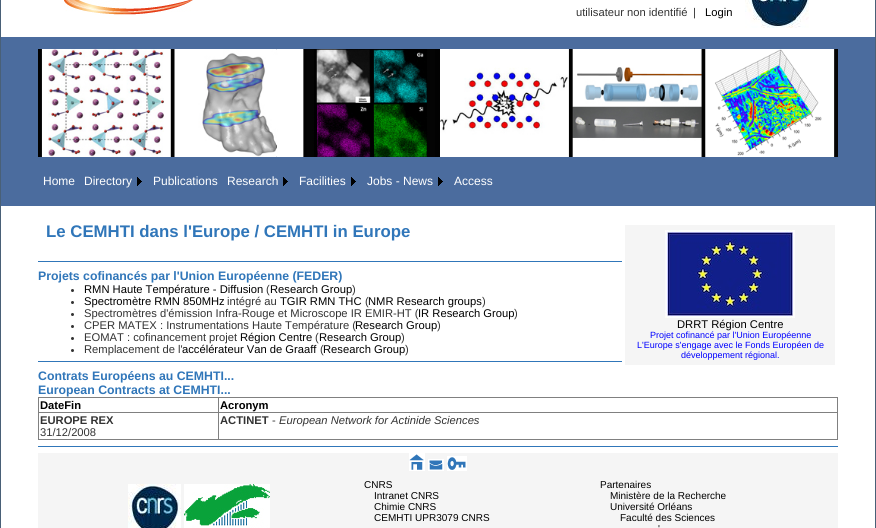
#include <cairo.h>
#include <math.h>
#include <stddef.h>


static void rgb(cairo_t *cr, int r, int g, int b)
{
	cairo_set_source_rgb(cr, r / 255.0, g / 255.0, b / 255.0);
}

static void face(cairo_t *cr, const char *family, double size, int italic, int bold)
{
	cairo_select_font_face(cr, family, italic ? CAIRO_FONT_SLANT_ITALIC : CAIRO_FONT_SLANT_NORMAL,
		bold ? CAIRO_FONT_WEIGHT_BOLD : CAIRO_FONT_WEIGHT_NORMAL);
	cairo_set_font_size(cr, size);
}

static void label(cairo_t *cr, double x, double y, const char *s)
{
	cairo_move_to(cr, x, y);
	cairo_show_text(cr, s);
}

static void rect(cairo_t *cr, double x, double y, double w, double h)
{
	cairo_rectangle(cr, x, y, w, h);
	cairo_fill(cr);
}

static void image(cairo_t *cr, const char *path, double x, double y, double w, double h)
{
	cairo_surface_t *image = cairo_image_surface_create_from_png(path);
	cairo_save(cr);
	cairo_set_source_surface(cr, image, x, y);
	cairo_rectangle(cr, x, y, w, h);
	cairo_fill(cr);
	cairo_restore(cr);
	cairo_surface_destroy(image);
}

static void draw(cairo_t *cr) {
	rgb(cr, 255, 255, 255);
	cairo_paint(cr);
	cairo_rectangle(cr, 0.5, -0.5, 875, 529);
	rgb(cr, 73, 96, 119);
	cairo_set_line_width(cr, 1);
	cairo_stroke(cr);
	image(cr, "image0.png", 64, 0, 129, 15);
	face(cr, "Liberation Sans", 11.2, 0, 0);
	rgb(cr, 51, 51, 51);
	label(cr, 576, 16, "utilisateur non identifié");
	label(cr, 693, 16, "|");
	rgb(cr, 0, 0, 0);
	label(cr, 705, 16, "Login");
	image(cr, "image1.png", 745, 0, 64, 28);
	rgb(cr, 75, 108, 158);
	rect(cr, 1, 37, 874, 169);
	image(cr, "image2.png", 38, 49, 800, 108);
	face(cr, "Liberation Sans", 12, 0, 0);
	rgb(cr, 255, 255, 255);
	label(cr, 43, 185, "Home");
	label(cr, 84, 185, "Directory");
	image(cr, "image3.png", 137, 177, 5, 9);
	label(cr, 153, 185, "Publications");
	label(cr, 227, 185, "Research");
	image(cr, "image3.png", 283, 177, 5, 9);
	label(cr, 299, 185, "Facilities");
	image(cr, "image3.png", 351, 177, 5, 9);
	label(cr, 367, 185, "Jobs - News");
	image(cr, "image3.png", 438, 177, 5, 9);
	label(cr, 454, 185, "Access");
	face(cr, "Liberation Sans", 16.8, 0, 1);
	rgb(cr, 48, 118, 185);
	label(cr, 46, 237, "Le CEMHTI dans l'Europe / CEMHTI in Europe");
	rect(cr, 38, 261, 584, 1);
	face(cr, "Liberation Sans", 12.3, 0, 1);
	label(cr, 38, 280, "Projets cofinancés par l'Union Européenne (FEDER)");
	rgb(cr, 51, 51, 51);
	cairo_new_path(cr);
	cairo_arc(cr, 72.5, 290.5, 1.5, 0, 2 * M_PI);
	cairo_fill(cr);
	face(cr, "Liberation Sans", 11.2, 0, 0);
	rgb(cr, 0, 0, 0);
	label(cr, 84, 293, "RMN Haute Température - Diffusion");
	rgb(cr, 51, 51, 51);
	label(cr, 266, 293, "(");
	rgb(cr, 0, 0, 0);
	label(cr, 270, 293, "Research Group");
	rgb(cr, 51, 51, 51);
	label(cr, 352, 293, ")");
	cairo_new_path(cr);
	cairo_arc(cr, 72.5, 302.5, 1.5, 0, 2 * M_PI);
	cairo_fill(cr);
	rgb(cr, 0, 0, 0);
	label(cr, 84, 305, "Spectromètre RMN 850MHz");
	rgb(cr, 51, 51, 51);
	label(cr, 227, 305, "intégré au");
	rgb(cr, 0, 0, 0);
	label(cr, 280, 305, "TGIR RMN THC");
	rgb(cr, 51, 51, 51);
	label(cr, 365, 305, "(");
	rgb(cr, 0, 0, 0);
	label(cr, 368, 305, "NMR Research groups");
	rgb(cr, 51, 51, 51);
	label(cr, 482, 305, ")");
	cairo_new_path(cr);
	cairo_arc(cr, 72.5, 314.5, 1.5, 0, 2 * M_PI);
	cairo_fill(cr);
	label(cr, 84, 317, "Spectromètres d'émission Infra-Rouge et Microscope IR EMIR-HT (");
	rgb(cr, 0, 0, 0);
	label(cr, 418, 317, "IR Research Group");
	rgb(cr, 51, 51, 51);
	label(cr, 514, 317, ")");
	cairo_new_path(cr);
	cairo_arc(cr, 72.5, 326.5, 1.5, 0, 2 * M_PI);
	cairo_fill(cr);
	label(cr, 84, 329, "CPER MATEX : Instrumentations Haute Température (");
	rgb(cr, 0, 0, 0);
	label(cr, 355, 329, "Research Group");
	rgb(cr, 51, 51, 51);
	label(cr, 437, 329, ")");
	cairo_new_path(cr);
	cairo_arc(cr, 72.5, 338.5, 1.5, 0, 2 * M_PI);
	cairo_fill(cr);
	label(cr, 84, 341, "EOMAT : cofinancement projet");
	rgb(cr, 0, 0, 0);
	label(cr, 240, 341, "Région Centre");
	rgb(cr, 51, 51, 51);
	label(cr, 315, 341, "(");
	rgb(cr, 0, 0, 0);
	label(cr, 319, 341, "Research Group");
	rgb(cr, 51, 51, 51);
	label(cr, 401, 341, ")");
	cairo_new_path(cr);
	cairo_arc(cr, 72.5, 350.5, 1.5, 0, 2 * M_PI);
	cairo_fill(cr);
	label(cr, 84, 353, "Remplacement de l'");
	rgb(cr, 0, 0, 0);
	label(cr, 182, 353, "accélérateur Van de Graaff");
	rgb(cr, 51, 51, 51);
	label(cr, 320, 353, "(");
	rgb(cr, 0, 0, 0);
	label(cr, 323, 353, "Research Group");
	rgb(cr, 51, 51, 51);
	label(cr, 405, 353, ")");
	rgb(cr, 245, 245, 245);
	rect(cr, 625, 225, 210, 140);
	image(cr, "image4.png", 665, 230, 130, 88);
	rgb(cr, 0, 0, 0);
	label(cr, 677, 328, "DRRT Région Centre");
	face(cr, "Liberation Sans", 9, 0, 0);
	rgb(cr, 0, 0, 255);
	label(cr, 650, 338, "Projet cofinancé par l'Union Européenne");
	label(cr, 637, 348, "L'Europe s'engage avec le Fonds Européen de");
	label(cr, 681, 358, "développement régional.");
	rgb(cr, 48, 118, 185);
	rect(cr, 38, 361, 584, 1);
	face(cr, "Liberation Sans", 12.3, 0, 1);
	label(cr, 38, 380, "Contrats Européens au CEMHTI...");
	label(cr, 38, 394, "European Contracts at CEMHTI...");
	rgb(cr, 128, 128, 128);
	rect(cr, 38, 397, 800, 1);
	rect(cr, 837, 397, 1, 43);
	rect(cr, 38, 439, 800, 1);
	rect(cr, 38, 397, 1, 43);
	face(cr, "Liberation Sans", 11.2, 0, 1);
	rgb(cr, 0, 0, 0);
	label(cr, 40, 409, "DateFin");
	rgb(cr, 128, 128, 128);
	rect(cr, 218, 412, 620, 1);
	rect(cr, 218, 412, 1, 28);
	rect(cr, 38, 412, 181, 1);
	rect(cr, 218, 397, 1, 16);
	rgb(cr, 0, 0, 0);
	label(cr, 220, 409, "Acronym");
	rgb(cr, 51, 51, 51);
	label(cr, 40, 424, "EUROPE REX");
	face(cr, "Liberation Sans", 11.2, 0, 0);
	label(cr, 40, 436, "31/12/2008");
	face(cr, "Liberation Sans", 11.2, 0, 1);
	label(cr, 220, 424, "ACTINET");
	face(cr, "Liberation Sans", 11.2, 0, 0);
	label(cr, 272, 424, "-");
	face(cr, "Liberation Sans", 11.2, 1, 0);
	label(cr, 279, 424, "European Network for Actinide Sciences");
	rgb(cr, 48, 118, 185);
	rect(cr, 38, 446, 800, 1);
	rgb(cr, 245, 245, 245);
	rect(cr, 38, 453, 800, 75);
	image(cr, "image5.png", 409, 453, 16, 18);
	image(cr, "image6.png", 428, 459, 16, 12);
	image(cr, "image7.png", 447, 456, 20, 15);
	image(cr, "image8.png", 128, 484, 53, 44);
	image(cr, "image9.png", 184, 484, 86, 44);
	face(cr, "Liberation Sans", 10, 0, 0);
	rgb(cr, 0, 0, 0);
	label(cr, 364, 488, "CNRS");
	label(cr, 374, 499, "Intranet CNRS");
	label(cr, 374, 510, "Chimie CNRS");
	label(cr, 374, 521, "CEMHTI UPR3079 CNRS");
	label(cr, 600, 488, "Partenaires");
	label(cr, 610, 499, "Ministère de la Recherche");
	label(cr, 610, 510, "Université Orléans");
	label(cr, 620, 521, "Faculté des Sciences");
	label(cr, 658, 532, "'");
}

int main(void) {
	cairo_surface_t *surface = cairo_image_surface_create(CAIRO_FORMAT_RGB24, 876, 528);
	cairo_t *cr = cairo_create(surface);
	cairo_font_options_t *options = cairo_font_options_create();
	cairo_font_options_set_hint_metrics(options, CAIRO_HINT_METRICS_OFF);
	cairo_font_options_set_hint_style(options, CAIRO_HINT_STYLE_NONE);
	cairo_set_font_options(cr, options);
	cairo_set_miter_limit(cr, 4);
	draw(cr);
	cairo_surface_write_to_png(surface, "render.png");
	cairo_font_options_destroy(options);
	cairo_destroy(cr);
	cairo_surface_destroy(surface);
	return 0;
}
